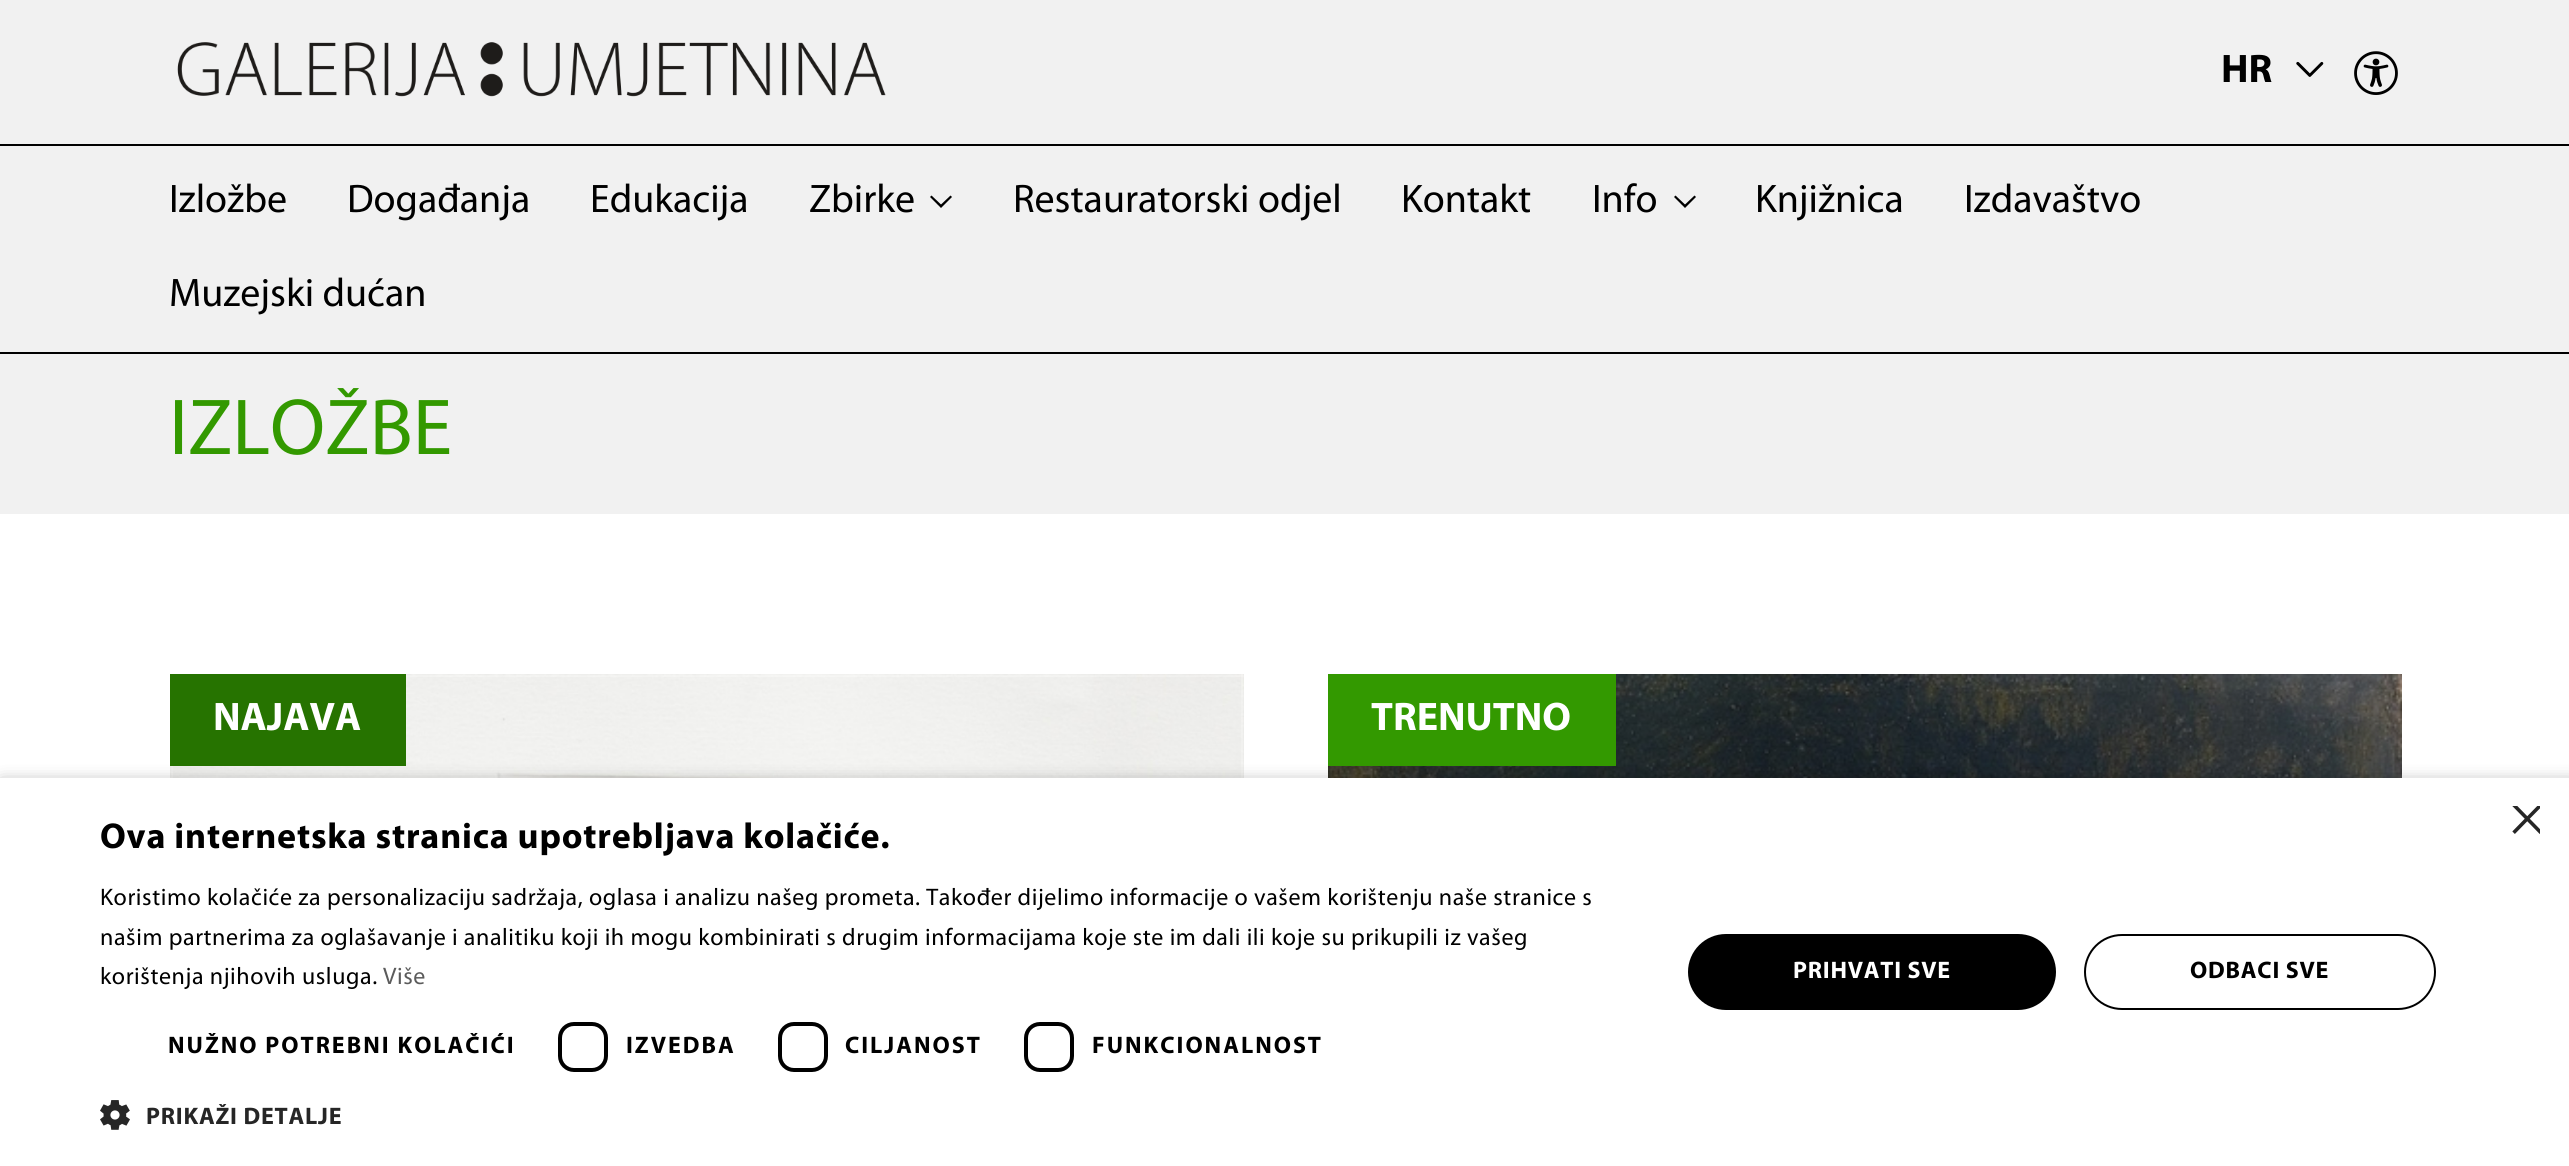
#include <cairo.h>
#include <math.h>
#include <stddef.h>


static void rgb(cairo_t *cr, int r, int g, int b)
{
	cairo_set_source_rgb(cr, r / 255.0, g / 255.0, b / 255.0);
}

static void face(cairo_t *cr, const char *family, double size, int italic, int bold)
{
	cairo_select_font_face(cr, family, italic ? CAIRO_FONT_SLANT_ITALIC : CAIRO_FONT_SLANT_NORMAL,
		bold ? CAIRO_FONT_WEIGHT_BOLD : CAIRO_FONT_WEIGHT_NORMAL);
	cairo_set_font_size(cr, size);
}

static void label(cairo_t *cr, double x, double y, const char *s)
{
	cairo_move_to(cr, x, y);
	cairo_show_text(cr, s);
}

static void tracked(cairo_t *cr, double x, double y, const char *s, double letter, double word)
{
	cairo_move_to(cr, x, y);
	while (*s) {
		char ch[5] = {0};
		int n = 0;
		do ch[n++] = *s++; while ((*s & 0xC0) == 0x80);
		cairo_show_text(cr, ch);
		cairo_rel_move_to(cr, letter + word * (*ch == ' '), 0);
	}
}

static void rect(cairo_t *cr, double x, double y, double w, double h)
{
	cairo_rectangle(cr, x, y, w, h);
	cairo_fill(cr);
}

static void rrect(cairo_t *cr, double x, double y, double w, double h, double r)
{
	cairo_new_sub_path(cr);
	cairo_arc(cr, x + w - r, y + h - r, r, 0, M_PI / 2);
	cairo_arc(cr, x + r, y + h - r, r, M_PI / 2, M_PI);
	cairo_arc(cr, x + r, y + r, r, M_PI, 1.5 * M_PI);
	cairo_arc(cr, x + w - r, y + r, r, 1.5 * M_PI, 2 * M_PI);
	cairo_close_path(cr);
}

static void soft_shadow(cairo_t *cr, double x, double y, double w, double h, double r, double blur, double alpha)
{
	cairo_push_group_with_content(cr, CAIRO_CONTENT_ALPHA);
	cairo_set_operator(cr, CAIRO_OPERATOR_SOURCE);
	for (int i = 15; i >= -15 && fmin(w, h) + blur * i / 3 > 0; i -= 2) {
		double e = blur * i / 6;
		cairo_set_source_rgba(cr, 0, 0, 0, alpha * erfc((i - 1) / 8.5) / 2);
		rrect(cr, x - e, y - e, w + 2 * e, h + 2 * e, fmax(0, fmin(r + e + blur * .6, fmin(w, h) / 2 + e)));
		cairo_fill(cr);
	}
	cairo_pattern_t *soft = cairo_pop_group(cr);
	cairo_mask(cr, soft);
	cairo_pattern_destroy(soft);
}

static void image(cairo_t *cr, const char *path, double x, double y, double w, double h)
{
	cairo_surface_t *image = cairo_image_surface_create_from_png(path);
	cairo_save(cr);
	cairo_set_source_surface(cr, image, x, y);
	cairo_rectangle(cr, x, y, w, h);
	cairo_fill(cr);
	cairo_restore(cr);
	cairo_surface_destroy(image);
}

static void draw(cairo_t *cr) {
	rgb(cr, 255, 255, 255);
	cairo_paint(cr);
	rgb(cr, 241, 241, 241);
	rect(cr, 0, 0, 2569, 352);
	rgb(cr, 0, 0, 0);
	rect(cr, 0, 144, 2569, 2);
	image(cr, "image0.png", 177, 42, 709, 55);
	face(cr, "Myriad", 40, 0, 1);
	label(cr, 2221, 82, "HR");
	image(cr, "image1.png", 2296, 61, 28, 16);
	face(cr, "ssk", 50, 0, 0);
	label(cr, 2351, 95, "A");
	rect(cr, 0, 352, 2569, 2);
	face(cr, "Myriad", 40, 0, 0);
	label(cr, 169, 212, "Izložbe");
	label(cr, 347, 212, "Događanja");
	label(cr, 590, 212, "Edukacija");
	label(cr, 809, 212, "Zbirke");
	cairo_new_path(cr);
	cairo_move_to(cr, 930, 197);
	cairo_line_to(cr, 931.5, 195.5);
	cairo_line_to(cr, 941, 204.5);
	cairo_line_to(cr, 950.5, 195.5);
	cairo_line_to(cr, 952, 197);
	cairo_line_to(cr, 941, 208);
	cairo_close_path(cr);
	cairo_fill(cr);
	label(cr, 1013, 212, "Restauratorski odjel");
	label(cr, 1401, 212, "Kontakt");
	label(cr, 1592, 212, "Info");
	cairo_new_path(cr);
	cairo_move_to(cr, 1674, 197);
	cairo_line_to(cr, 1675.5, 195.5);
	cairo_line_to(cr, 1685, 204.5);
	cairo_line_to(cr, 1694.5, 195.5);
	cairo_line_to(cr, 1696, 197);
	cairo_line_to(cr, 1685, 208);
	cairo_close_path(cr);
	cairo_fill(cr);
	label(cr, 1755, 212, "Knjižnica");
	label(cr, 1964, 212, "Izdavaštvo");
	label(cr, 169, 306, "Muzejski dućan");
	rgb(cr, 241, 241, 241);
	rect(cr, 0, 354, 2569, 160);
	face(cr, "Myriad", 80, 0, 0);
	rgb(cr, 51, 153, 0);
	label(cr, 169, 454, "IZLOŽBE");
	image(cr, "image2.png", 170, 674, 1074, 104);
	rgb(cr, 38, 115, 0);
	rect(cr, 170, 674, 236, 92);
	face(cr, "Myriad", 40, 0, 1);
	rgb(cr, 255, 255, 255);
	label(cr, 213, 730, "NAJAVA");
	image(cr, "image3.png", 1328, 674, 1074, 104);
	rgb(cr, 51, 153, 0);
	rect(cr, 1328, 674, 288, 92);
	rgb(cr, 255, 255, 255);
	label(cr, 1371, 730, "TRENUTNO");
	rgb(cr, 0, 0, 0);
	soft_shadow(cr, 2, 782, 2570, 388, 0, 8, 0.35);
	rgb(cr, 255, 255, 255);
	rect(cr, 0, 778, 2569, 388);
	face(cr, "Myriad", 36, 0, 1);
	rgb(cr, 0, 0, 0);
	tracked(cr, 100, 848, "Ova internetska stranica upotrebljava kolačiće.", 0.8, 0);
	face(cr, "Myriad", 24, 0, 0);
	tracked(cr, 100, 905, "Koristimo kolačiće za personalizaciju sadržaja, oglasa i analizu našeg prometa. Također dijelimo informacije o vašem korištenju naše stranice s", 0.6, 0);
	tracked(cr, 100, 945, "našim partnerima za oglašavanje i analitiku koji ih mogu kombinirati s drugim informacijama koje ste im dali ili koje su prikupili iz vašeg", 0.6, 0);
	tracked(cr, 100, 984, "korištenja njihovih usluga.", 0.6, 0);
	rgb(cr, 91, 91, 91);
	tracked(cr, 383, 984, "Više", 0.6, 0);
	face(cr, "Myriad", 24, 0, 1);
	rgb(cr, 0, 0, 0);
	tracked(cr, 168, 1053, "NUŽNO POTREBNI KOLAČIĆI", 2, 0);
	rrect(cr, 560, 1024, 46, 46, 14);
	cairo_set_line_width(cr, 4);
	cairo_stroke(cr);
	tracked(cr, 626, 1053, "IZVEDBA", 2, 0);
	rrect(cr, 780, 1024, 46, 46, 14);
	cairo_stroke(cr);
	tracked(cr, 845, 1053, "CILJANOST", 2, 0);
	rrect(cr, 1026, 1024, 46, 46, 14);
	cairo_stroke(cr);
	tracked(cr, 1092, 1053, "FUNKCIONALNOST", 2, 0);
	image(cr, "image4.png", 100, 1100, 30, 30);
	rgb(cr, 38, 38, 38);
	tracked(cr, 146, 1124, "PRIKAŽI DETALJE", 0.8, 0);
	rgb(cr, 0, 0, 0);
	rrect(cr, 1688, 934, 368, 76, 38);
	cairo_fill(cr);
	rgb(cr, 255, 255, 255);
	tracked(cr, 1793, 978, "PRIHVATI SVE", 0.8, 0);
	rrect(cr, 2085, 935, 350, 74, 37);
	rgb(cr, 0, 0, 0);
	cairo_set_line_width(cr, 2);
	cairo_stroke(cr);
	tracked(cr, 2190, 978, "ODBACI SVE", 0.8, 0);
	cairo_save(cr);
	cairo_rectangle(cr, 2510, 806, 30, 30);
	cairo_clip(cr);
	face(cr, "Myriad", 58, 0, 0);
	rgb(cr, 38, 38, 38);
	label(cr, 2510, 834, "×");
	cairo_restore(cr);
}

int main(void) {
	cairo_surface_t *surface = cairo_image_surface_create(CAIRO_FORMAT_RGB24, 2569, 1166);
	cairo_t *cr = cairo_create(surface);
	cairo_font_options_t *options = cairo_font_options_create();
	cairo_font_options_set_hint_metrics(options, CAIRO_HINT_METRICS_OFF);
	cairo_font_options_set_hint_style(options, CAIRO_HINT_STYLE_NONE);
	cairo_set_font_options(cr, options);
	cairo_set_miter_limit(cr, 4);
	draw(cr);
	cairo_surface_write_to_png(surface, "render.png");
	cairo_font_options_destroy(options);
	cairo_destroy(cr);
	cairo_surface_destroy(surface);
	return 0;
}
